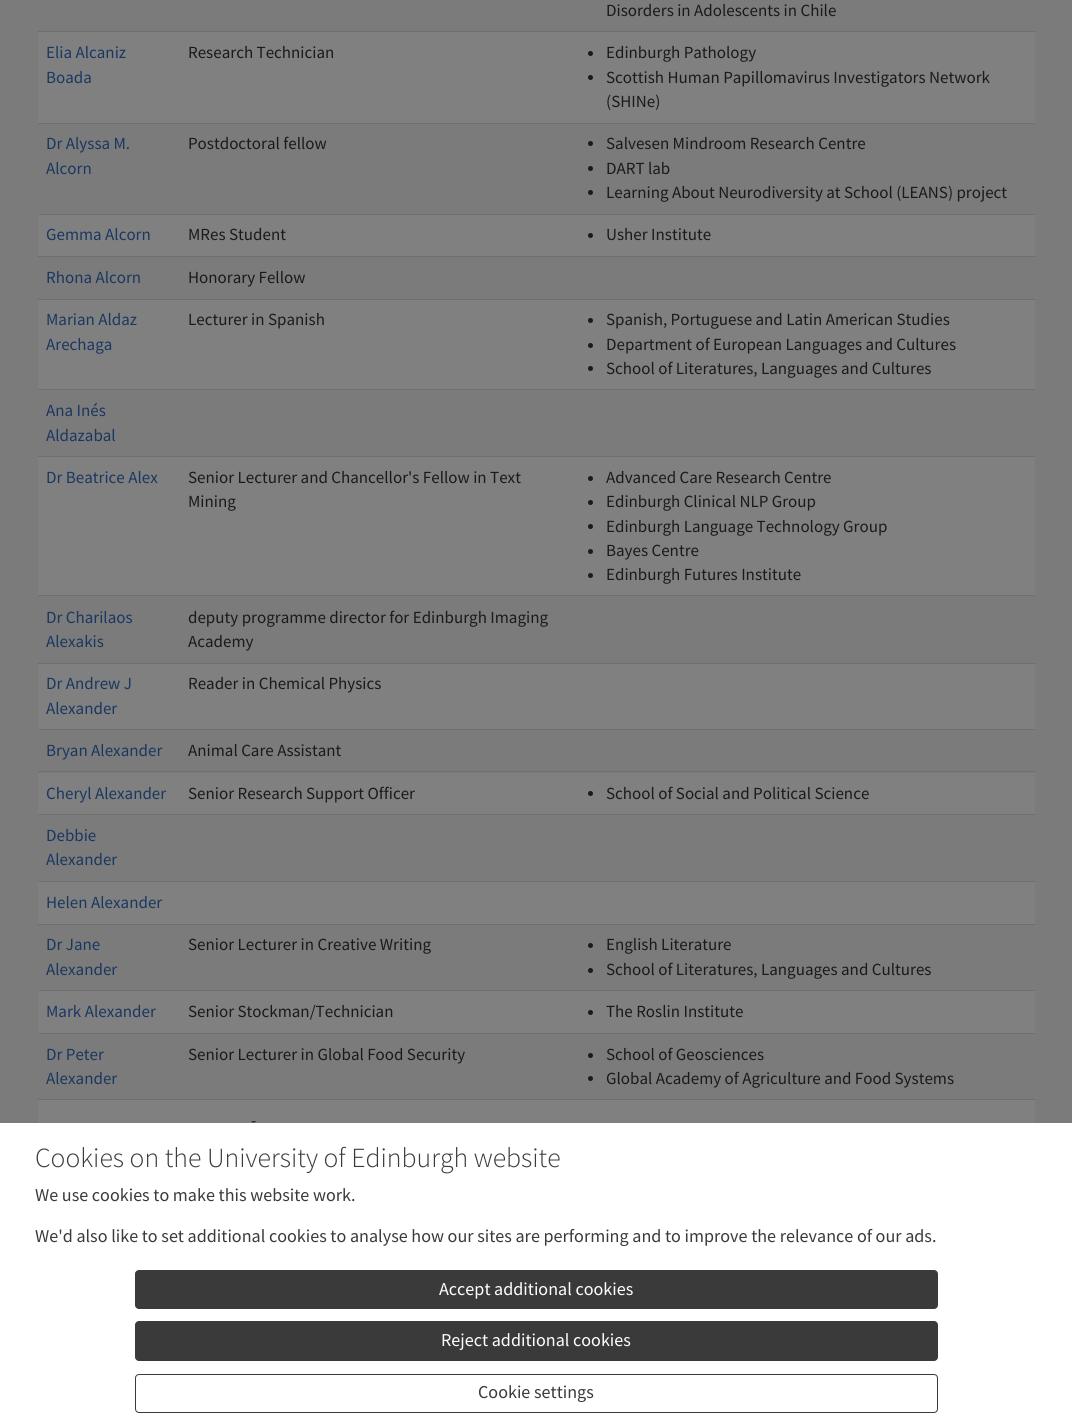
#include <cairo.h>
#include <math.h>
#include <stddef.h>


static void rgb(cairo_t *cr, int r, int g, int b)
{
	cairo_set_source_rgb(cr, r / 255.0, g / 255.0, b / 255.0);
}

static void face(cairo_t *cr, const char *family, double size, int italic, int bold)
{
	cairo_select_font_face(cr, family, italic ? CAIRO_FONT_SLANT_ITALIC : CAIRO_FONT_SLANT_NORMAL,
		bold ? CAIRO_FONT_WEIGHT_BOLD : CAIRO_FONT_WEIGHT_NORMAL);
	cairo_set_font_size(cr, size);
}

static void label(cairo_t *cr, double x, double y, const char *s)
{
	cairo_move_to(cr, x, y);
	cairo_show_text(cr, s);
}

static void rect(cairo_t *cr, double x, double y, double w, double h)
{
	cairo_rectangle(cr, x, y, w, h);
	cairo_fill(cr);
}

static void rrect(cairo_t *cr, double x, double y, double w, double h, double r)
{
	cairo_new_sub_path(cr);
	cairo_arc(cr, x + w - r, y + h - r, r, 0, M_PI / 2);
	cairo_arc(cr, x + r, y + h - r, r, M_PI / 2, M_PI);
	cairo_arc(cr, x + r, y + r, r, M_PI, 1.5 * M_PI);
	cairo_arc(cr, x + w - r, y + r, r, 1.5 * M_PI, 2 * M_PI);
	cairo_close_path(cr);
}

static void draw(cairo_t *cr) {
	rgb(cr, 123, 123, 123);
	cairo_paint(cr);
	face(cr, "Source Sans Pro", 17, 0, 0);
	rgb(cr, 26, 26, 26);
	label(cr, 606, 16, "Disorders in Adolescents in Chile");
	rgb(cr, 128, 128, 128);
	rect(cr, 38, 32, 997, 91);
	rgb(cr, 26, 55, 96);
	label(cr, 46, 58, "Elia Alcaniz");
	label(cr, 46, 83, "Boada");
	rgb(cr, 26, 26, 26);
	label(cr, 188, 58, "Research Technician");
	rgb(cr, 111, 111, 111);
	rect(cr, 38, 31, 997, 1);
	rgb(cr, 26, 26, 26);
	cairo_new_path(cr);
	cairo_arc(cr, 590.5, 53.5, 2.5, 0, 2 * M_PI);
	cairo_fill(cr);
	label(cr, 606, 58, "Edinburgh Pathology");
	cairo_new_path(cr);
	cairo_arc(cr, 590.5, 77.5, 2.5, 0, 2 * M_PI);
	cairo_fill(cr);
	label(cr, 606, 83, "Scottish Human Papillomavirus Investigators Network");
	label(cr, 606, 107, "(SHINe)");
	rgb(cr, 26, 55, 96);
	label(cr, 46, 149, "Dr Alyssa M.");
	label(cr, 46, 174, "Alcorn");
	rgb(cr, 26, 26, 26);
	label(cr, 188, 149, "Postdoctoral fellow");
	rgb(cr, 111, 111, 111);
	rect(cr, 38, 123, 997, 1);
	rgb(cr, 26, 26, 26);
	cairo_new_path(cr);
	cairo_arc(cr, 590.5, 143.5, 2.5, 0, 2 * M_PI);
	cairo_fill(cr);
	label(cr, 606, 149, "Salvesen Mindroom Research Centre");
	cairo_new_path(cr);
	cairo_arc(cr, 590.5, 168.5, 2.5, 0, 2 * M_PI);
	cairo_fill(cr);
	label(cr, 606, 174, "DART lab");
	cairo_new_path(cr);
	cairo_arc(cr, 590.5, 192.5, 2.5, 0, 2 * M_PI);
	cairo_fill(cr);
	label(cr, 606, 198, "Learning About Neurodiversity at School (LEANS) project");
	rgb(cr, 128, 128, 128);
	rect(cr, 38, 215, 997, 41);
	rgb(cr, 26, 55, 96);
	label(cr, 46, 240, "Gemma Alcorn");
	rgb(cr, 26, 26, 26);
	label(cr, 188, 240, "MRes Student");
	rgb(cr, 111, 111, 111);
	rect(cr, 38, 214, 997, 1);
	rgb(cr, 26, 26, 26);
	cairo_new_path(cr);
	cairo_arc(cr, 590.5, 235.5, 2.5, 0, 2 * M_PI);
	cairo_fill(cr);
	label(cr, 606, 240, "Usher Institute");
	rgb(cr, 111, 111, 111);
	rect(cr, 38, 256, 997, 1);
	rgb(cr, 26, 55, 96);
	label(cr, 46, 283, "Rhona Alcorn");
	rgb(cr, 26, 26, 26);
	label(cr, 188, 283, "Honorary Fellow");
	rgb(cr, 128, 128, 128);
	rect(cr, 38, 300, 997, 89);
	rgb(cr, 26, 55, 96);
	label(cr, 46, 325, "Marian Aldaz");
	label(cr, 46, 350, "Arechaga");
	rgb(cr, 26, 26, 26);
	label(cr, 188, 325, "Lecturer in Spanish");
	rgb(cr, 111, 111, 111);
	rect(cr, 38, 299, 997, 1);
	rgb(cr, 26, 26, 26);
	cairo_new_path(cr);
	cairo_arc(cr, 590.5, 320.5, 2.5, 0, 2 * M_PI);
	cairo_fill(cr);
	label(cr, 606, 325, "Spanish, Portuguese and Latin American Studies");
	cairo_new_path(cr);
	cairo_arc(cr, 590.5, 345.5, 2.5, 0, 2 * M_PI);
	cairo_fill(cr);
	label(cr, 606, 350, "Department of European Languages and Cultures");
	cairo_new_path(cr);
	cairo_arc(cr, 590.5, 368.5, 2.5, 0, 2 * M_PI);
	cairo_fill(cr);
	label(cr, 606, 374, "School of Literatures, Languages and Cultures");
	rgb(cr, 111, 111, 111);
	rect(cr, 38, 389, 997, 1);
	rgb(cr, 26, 55, 96);
	label(cr, 46, 416, "Ana Inés");
	label(cr, 46, 441, "Aldazabal");
	rgb(cr, 128, 128, 128);
	rect(cr, 38, 457, 997, 138);
	rgb(cr, 26, 55, 96);
	label(cr, 46, 483, "Dr Beatrice Alex");
	rgb(cr, 26, 26, 26);
	label(cr, 188, 483, "Senior Lecturer and Chancellor's Fellow in Text");
	label(cr, 188, 507, "Mining");
	rgb(cr, 111, 111, 111);
	rect(cr, 38, 456, 997, 1);
	rgb(cr, 26, 26, 26);
	cairo_new_path(cr);
	cairo_arc(cr, 590.5, 478.5, 2.5, 0, 2 * M_PI);
	cairo_fill(cr);
	label(cr, 606, 483, "Advanced Care Research Centre");
	cairo_new_path(cr);
	cairo_arc(cr, 590.5, 502.5, 2.5, 0, 2 * M_PI);
	cairo_fill(cr);
	label(cr, 606, 507, "Edinburgh Clinical NLP Group");
	cairo_new_path(cr);
	cairo_arc(cr, 590.5, 526.5, 2.5, 0, 2 * M_PI);
	cairo_fill(cr);
	label(cr, 606, 532, "Edinburgh Language Technology Group");
	cairo_new_path(cr);
	cairo_arc(cr, 590.5, 551.5, 2.5, 0, 2 * M_PI);
	cairo_fill(cr);
	label(cr, 606, 556, "Bayes Centre");
	cairo_new_path(cr);
	cairo_arc(cr, 590.5, 575.5, 2.5, 0, 2 * M_PI);
	cairo_fill(cr);
	label(cr, 606, 580, "Edinburgh Futures Institute");
	rgb(cr, 111, 111, 111);
	rect(cr, 38, 595, 997, 1);
	rgb(cr, 26, 55, 96);
	label(cr, 46, 623, "Dr Charilaos");
	label(cr, 46, 647, "Alexakis");
	rgb(cr, 26, 26, 26);
	label(cr, 188, 623, "deputy programme director for Edinburgh Imaging");
	label(cr, 188, 647, "Academy");
	rgb(cr, 128, 128, 128);
	rect(cr, 38, 664, 997, 65);
	rgb(cr, 111, 111, 111);
	rect(cr, 38, 663, 997, 1);
	rgb(cr, 26, 55, 96);
	label(cr, 46, 689, "Dr Andrew J");
	label(cr, 46, 714, "Alexander");
	rgb(cr, 26, 26, 26);
	label(cr, 188, 689, "Reader in Chemical Physics");
	rgb(cr, 111, 111, 111);
	rect(cr, 38, 729, 997, 1);
	rgb(cr, 26, 55, 96);
	label(cr, 46, 756, "Bryan Alexander");
	rgb(cr, 26, 26, 26);
	label(cr, 188, 756, "Animal Care Assistant");
	rgb(cr, 128, 128, 128);
	rect(cr, 38, 773, 997, 41);
	rgb(cr, 26, 55, 96);
	label(cr, 46, 799, "Cheryl Alexander");
	rgb(cr, 26, 26, 26);
	label(cr, 188, 799, "Senior Research Support Officer");
	rgb(cr, 111, 111, 111);
	rect(cr, 38, 771, 997, 1);
	rgb(cr, 26, 26, 26);
	cairo_new_path(cr);
	cairo_arc(cr, 590.5, 793.5, 2.5, 0, 2 * M_PI);
	cairo_fill(cr);
	label(cr, 606, 799, "School of Social and Political Science");
	rgb(cr, 111, 111, 111);
	rect(cr, 38, 814, 997, 1);
	rgb(cr, 26, 55, 96);
	label(cr, 46, 841, "Debbie");
	label(cr, 46, 865, "Alexander");
	rgb(cr, 128, 128, 128);
	rect(cr, 38, 882, 997, 42);
	rgb(cr, 111, 111, 111);
	rect(cr, 38, 881, 997, 1);
	rgb(cr, 26, 55, 96);
	label(cr, 46, 908, "Helen Alexander");
	label(cr, 46, 950, "Dr Jane");
	label(cr, 46, 975, "Alexander");
	rgb(cr, 26, 26, 26);
	label(cr, 188, 950, "Senior Lecturer in Creative Writing");
	rgb(cr, 111, 111, 111);
	rect(cr, 38, 924, 997, 1);
	rgb(cr, 26, 26, 26);
	cairo_new_path(cr);
	cairo_arc(cr, 590.5, 945.5, 2.5, 0, 2 * M_PI);
	cairo_fill(cr);
	label(cr, 606, 950, "English Literature");
	cairo_new_path(cr);
	cairo_arc(cr, 590.5, 970.5, 2.5, 0, 2 * M_PI);
	cairo_fill(cr);
	label(cr, 606, 975, "School of Literatures, Languages and Cultures");
	rgb(cr, 128, 128, 128);
	rect(cr, 38, 991, 997, 42);
	rgb(cr, 26, 55, 96);
	label(cr, 46, 1017, "Mark Alexander");
	rgb(cr, 26, 26, 26);
	label(cr, 188, 1017, "Senior Stockman/Technician");
	rgb(cr, 111, 111, 111);
	rect(cr, 38, 990, 997, 1);
	rgb(cr, 26, 26, 26);
	cairo_new_path(cr);
	cairo_arc(cr, 590.5, 1012.5, 2.5, 0, 2 * M_PI);
	cairo_fill(cr);
	label(cr, 606, 1017, "The Roslin Institute");
	rgb(cr, 26, 55, 96);
	label(cr, 46, 1060, "Dr Peter");
	label(cr, 46, 1084, "Alexander");
	rgb(cr, 26, 26, 26);
	label(cr, 188, 1060, "Senior Lecturer in Global Food Security");
	rgb(cr, 111, 111, 111);
	rect(cr, 38, 1033, 997, 1);
	rgb(cr, 26, 26, 26);
	cairo_new_path(cr);
	cairo_arc(cr, 590.5, 1055.5, 2.5, 0, 2 * M_PI);
	cairo_fill(cr);
	label(cr, 606, 1060, "School of Geosciences");
	cairo_new_path(cr);
	cairo_arc(cr, 590.5, 1078.5, 2.5, 0, 2 * M_PI);
	cairo_fill(cr);
	label(cr, 606, 1084, "Global Academy of Agriculture and Food Systems");
	rgb(cr, 128, 128, 128);
	rect(cr, 38, 1100, 997, 23);
	rgb(cr, 111, 111, 111);
	rect(cr, 38, 1099, 997, 1);
	rgb(cr, 26, 26, 26);
	label(cr, 251, 1126, "-");
	rgb(cr, 255, 255, 255);
	rect(cr, 0, 1123, 1072, 296);
	face(cr, "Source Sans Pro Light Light", 27.7, 0, 0);
	rgb(cr, 58, 58, 58);
	label(cr, 35, 1167, "Cookies on the University of Edinburgh website");
	face(cr, "Source Sans Pro", 18.1, 0, 0);
	label(cr, 35, 1201, "We use cookies to make this website work.");
	label(cr, 35, 1242, "We'd also like to set additional cookies to analyse how our sites are performing and to improve the relevance of our ads.");
	rrect(cr, 135.5, 1270.5, 802, 38, 3.5);
	cairo_fill_preserve(cr);
	cairo_set_line_width(cr, 1);
	cairo_stroke(cr);
	rgb(cr, 255, 255, 255);
	label(cr, 439, 1295, "Accept additional cookies");
	rgb(cr, 58, 58, 58);
	rrect(cr, 135.5, 1321.5, 802, 39, 3.5);
	cairo_fill_preserve(cr);
	cairo_stroke(cr);
	rgb(cr, 255, 255, 255);
	label(cr, 441, 1346, "Reject additional cookies");
	rrect(cr, 135.5, 1374.5, 802, 38, 3.5);
	rgb(cr, 58, 58, 58);
	cairo_stroke(cr);
	label(cr, 478, 1398, "Cookie settings");
}

int main(void) {
	cairo_surface_t *surface = cairo_image_surface_create(CAIRO_FORMAT_RGB24, 1072, 1419);
	cairo_t *cr = cairo_create(surface);
	cairo_font_options_t *options = cairo_font_options_create();
	cairo_font_options_set_hint_metrics(options, CAIRO_HINT_METRICS_OFF);
	cairo_font_options_set_hint_style(options, CAIRO_HINT_STYLE_NONE);
	cairo_set_font_options(cr, options);
	cairo_set_miter_limit(cr, 4);
	draw(cr);
	cairo_surface_write_to_png(surface, "render.png");
	cairo_font_options_destroy(options);
	cairo_destroy(cr);
	cairo_surface_destroy(surface);
	return 0;
}
